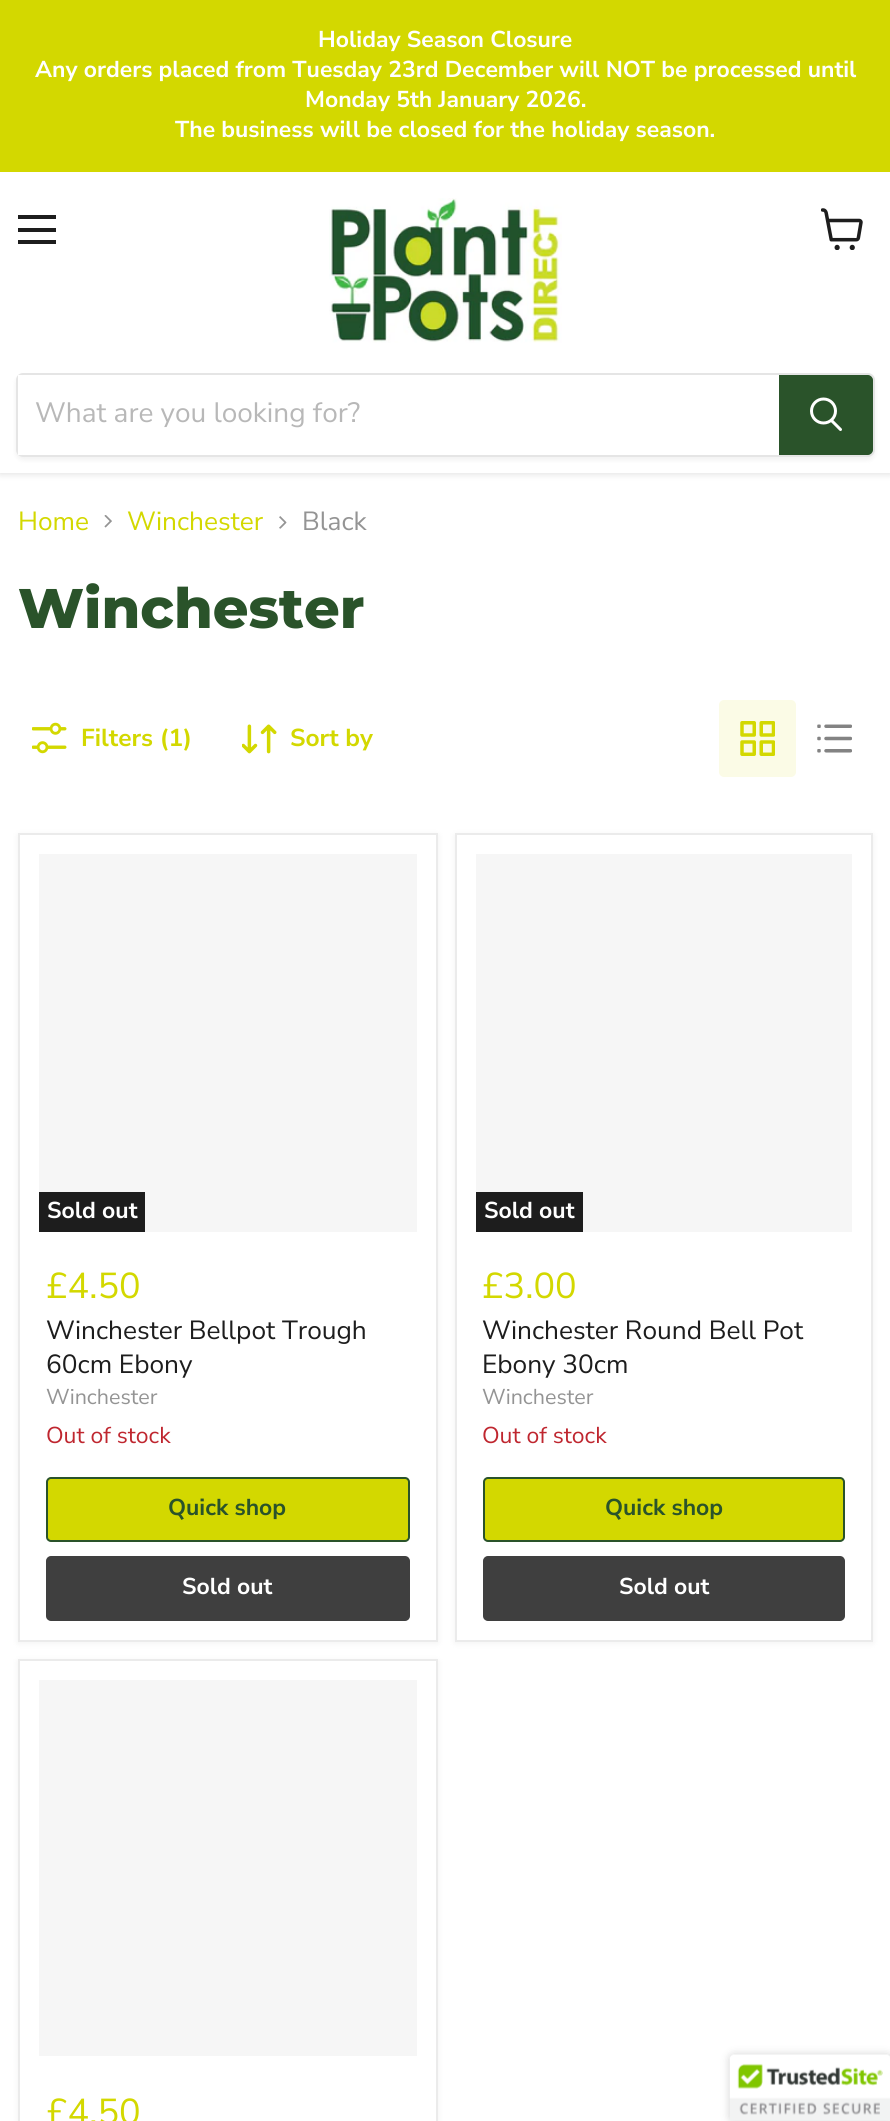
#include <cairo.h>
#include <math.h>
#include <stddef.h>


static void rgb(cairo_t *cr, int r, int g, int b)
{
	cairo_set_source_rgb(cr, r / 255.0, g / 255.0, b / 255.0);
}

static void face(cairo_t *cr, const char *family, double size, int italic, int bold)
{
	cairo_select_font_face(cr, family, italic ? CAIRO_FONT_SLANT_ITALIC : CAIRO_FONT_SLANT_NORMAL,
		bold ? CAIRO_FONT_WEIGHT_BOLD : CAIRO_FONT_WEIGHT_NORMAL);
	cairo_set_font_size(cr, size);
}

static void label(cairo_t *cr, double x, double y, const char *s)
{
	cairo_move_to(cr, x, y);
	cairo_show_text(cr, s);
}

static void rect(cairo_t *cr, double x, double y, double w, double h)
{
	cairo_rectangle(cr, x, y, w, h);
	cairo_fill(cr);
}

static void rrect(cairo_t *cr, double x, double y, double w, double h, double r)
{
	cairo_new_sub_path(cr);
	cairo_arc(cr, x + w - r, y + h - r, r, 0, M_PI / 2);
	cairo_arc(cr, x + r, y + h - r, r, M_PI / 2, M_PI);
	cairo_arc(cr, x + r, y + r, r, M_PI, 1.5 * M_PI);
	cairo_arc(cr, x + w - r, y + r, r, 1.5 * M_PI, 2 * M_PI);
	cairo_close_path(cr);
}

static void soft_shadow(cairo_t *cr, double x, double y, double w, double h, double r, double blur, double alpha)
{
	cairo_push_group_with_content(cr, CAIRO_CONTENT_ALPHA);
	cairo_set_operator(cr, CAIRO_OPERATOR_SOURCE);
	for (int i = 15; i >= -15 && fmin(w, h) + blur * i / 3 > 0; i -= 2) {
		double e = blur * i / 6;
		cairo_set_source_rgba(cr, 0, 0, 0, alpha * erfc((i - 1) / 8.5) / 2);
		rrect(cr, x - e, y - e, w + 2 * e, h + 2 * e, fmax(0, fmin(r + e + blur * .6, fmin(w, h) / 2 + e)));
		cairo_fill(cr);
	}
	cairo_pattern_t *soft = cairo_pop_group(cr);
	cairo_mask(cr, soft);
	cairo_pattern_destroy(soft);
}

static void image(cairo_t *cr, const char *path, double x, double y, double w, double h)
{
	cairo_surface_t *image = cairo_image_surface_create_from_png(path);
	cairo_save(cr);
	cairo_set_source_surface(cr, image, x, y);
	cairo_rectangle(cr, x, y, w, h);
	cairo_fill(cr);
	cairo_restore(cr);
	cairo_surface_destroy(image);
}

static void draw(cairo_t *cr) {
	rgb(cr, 255, 255, 255);
	cairo_paint(cr);
	rgb(cr, 128, 128, 128);
	soft_shadow(cr, 0, 173, 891, 301, 0, 3.5, 0.25);
	rgb(cr, 211, 216, 0);
	rect(cr, 0, 0, 890, 172);
	face(cr, "Nunito Sans", 22.95, 0, 1);
	rgb(cr, 255, 255, 255);
	label(cr, 318, 47, "Holiday Season Closure");
	label(cr, 35, 77, "Any orders placed from Tuesday 23rd December will NOT be processed until");
	label(cr, 305, 107, "Monday 5th January 2026.");
	label(cr, 175, 137, "The business will be closed for the holiday season.");
	rect(cr, 0, 172, 890, 301);
	rgb(cr, 29, 29, 29);
	rect(cr, 18, 215, 38, 4);
	rect(cr, 18, 228, 38, 4);
	rect(cr, 18, 240, 38, 4);
	image(cr, "image0.png", 821, 208, 42, 42);
	image(cr, "image1.png", 329, 198, 233, 145);
	cairo_save(cr);
	cairo_set_fill_rule(cr, CAIRO_FILL_RULE_EVEN_ODD);
	cairo_new_path(cr);
	cairo_move_to(cr, 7, 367);
	cairo_line_to(cr, 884, 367);
	cairo_line_to(cr, 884, 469);
	cairo_line_to(cr, 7, 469);
	cairo_close_path(cr);
	cairo_move_to(cr, 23, 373);
	cairo_line_to(cr, 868, 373);
	cairo_curve_to(cr, 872, 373, 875, 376, 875, 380);
	cairo_line_to(cr, 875, 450);
	cairo_curve_to(cr, 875, 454, 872, 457, 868, 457);
	cairo_line_to(cr, 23, 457);
	cairo_curve_to(cr, 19, 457, 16, 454, 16, 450);
	cairo_line_to(cr, 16, 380);
	cairo_curve_to(cr, 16, 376, 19, 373, 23, 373);
	cairo_close_path(cr);
	cairo_clip(cr);
	rgb(cr, 128, 128, 128);
	soft_shadow(cr, 16, 376, 859, 84, 7, 2.5, 0.11);
	cairo_restore(cr);
	rrect(cr, 17, 374, 857, 82, 6);
	cairo_set_source_rgba(cr, 0.502, 0.502, 0.502, 0.2);
	cairo_stroke(cr);
	rgb(cr, 255, 255, 255);
	rect(cr, 18, 375, 4, 80);
	face(cr, "Nunito Sans", 28, 0, 0);
	rgb(cr, 184, 184, 184);
	label(cr, 35, 422, "What are you looking for?");
	rgb(cr, 42, 83, 42);
	cairo_new_path(cr);
	cairo_move_to(cr, 780, 376);
	cairo_line_to(cr, 868, 376);
	cairo_curve_to(cr, 870, 376, 872, 378, 872, 380);
	cairo_line_to(cr, 872, 450);
	cairo_curve_to(cr, 872, 452, 870, 454, 868, 454);
	cairo_line_to(cr, 780, 454);
	cairo_close_path(cr);
	cairo_fill_preserve(cr);
	cairo_stroke(cr);
	cairo_new_path(cr);
	cairo_move_to(cr, 840.5, 429.5);
	cairo_line_to(cr, 832, 421);
	rgb(cr, 255, 255, 255);
	cairo_set_line_width(cr, 3);
	cairo_set_line_cap(cr, CAIRO_LINE_CAP_ROUND);
	cairo_stroke(cr);
	cairo_arc(cr, 823.5, 411, 12, 0, 2 * M_PI);
	cairo_set_line_cap(cr, CAIRO_LINE_CAP_BUTT);
	cairo_stroke(cr);
	face(cr, "Nunito Sans", 26.25, 0, 0);
	rgb(cr, 211, 216, 0);
	label(cr, 18, 530, "Home");
	image(cr, "image2.png", 104, 515, 8, 13);
	label(cr, 127, 530, "Winchester");
	image(cr, "image3.png", 279, 516, 8, 13);
	rgb(cr, 148, 148, 148);
	label(cr, 302, 530, "Black");
	face(cr, "Montserrat ExtraBold", 55.75, 0, 0);
	rgb(cr, 42, 83, 42);
	label(cr, 18, 628, "Winchester");
	image(cr, "image4.png", 32, 722, 35, 32);
	face(cr, "Nunito Sans", 24.5, 0, 1);
	rgb(cr, 211, 216, 0);
	label(cr, 81, 746, "Filters (1)");
	image(cr, "image5.png", 242, 724, 35, 30);
	label(cr, 290, 746, "Sort by");
	rgb(cr, 251, 251, 230);
	rrect(cr, 719, 700, 77, 77, 5);
	cairo_fill(cr);
	image(cr, "image6.png", 740, 721, 35, 35);
	image(cr, "image7.png", 817, 724, 35, 29);
	rgb(cr, 128, 128, 128);
	soft_shadow(cr, 18, 835, 420, 808, 0, 3.5, 0.11);
	rgb(cr, 255, 255, 255);
	cairo_rectangle(cr, 19, 834, 418, 807);
	cairo_fill_preserve(cr);
	rgb(cr, 235, 235, 235);
	cairo_set_line_width(cr, 2);
	cairo_stroke(cr);
	rgb(cr, 246, 246, 246);
	rect(cr, 39, 854, 378, 378);
	rgb(cr, 29, 29, 29);
	rect(cr, 39, 1192, 106, 40);
	face(cr, "Nunito Sans", 23, 0, 1);
	rgb(cr, 255, 255, 255);
	label(cr, 47, 1218, "Sold out");
	face(cr, "Nunito Sans", 36, 0, 0);
	rgb(cr, 211, 216, 0);
	label(cr, 46, 1298, "£4.50");
	face(cr, "Nunito Sans", 26.25, 0, 0);
	rgb(cr, 29, 29, 29);
	label(cr, 46, 1339, "Winchester Bellpot Trough");
	label(cr, 46, 1373, "60cm Ebony");
	face(cr, "Nunito Sans", 21.5, 0, 0);
	rgb(cr, 148, 148, 148);
	label(cr, 46, 1404, "Winchester");
	face(cr, "Nunito Sans", 22.95, 0, 0);
	rgb(cr, 191, 38, 47);
	label(cr, 46, 1443, "Out of stock");
	rgb(cr, 211, 216, 0);
	rrect(cr, 47, 1478, 362, 63, 4);
	cairo_fill_preserve(cr);
	rgb(cr, 42, 83, 42);
	cairo_stroke(cr);
	face(cr, "Nunito Sans", 22.95, 0, 1);
	label(cr, 168, 1515, "Quick shop");
	rgb(cr, 63, 63, 63);
	rrect(cr, 47, 1557, 362, 63, 4);
	cairo_fill_preserve(cr);
	cairo_stroke(cr);
	rgb(cr, 255, 255, 255);
	label(cr, 182, 1594, "Sold out");
	rgb(cr, 128, 128, 128);
	soft_shadow(cr, 455, 835, 418, 808, 0, 3.5, 0.11);
	rgb(cr, 255, 255, 255);
	cairo_rectangle(cr, 456, 834, 416, 807);
	cairo_fill_preserve(cr);
	rgb(cr, 235, 235, 235);
	cairo_stroke(cr);
	rgb(cr, 246, 246, 246);
	rect(cr, 476, 854, 376, 378);
	rgb(cr, 29, 29, 29);
	rect(cr, 476, 1192, 107, 40);
	face(cr, "Nunito Sans", 23, 0, 1);
	rgb(cr, 255, 255, 255);
	label(cr, 484, 1218, "Sold out");
	face(cr, "Nunito Sans", 36, 0, 0);
	rgb(cr, 211, 216, 0);
	label(cr, 482, 1298, "£3.00");
	face(cr, "Nunito Sans", 26.25, 0, 0);
	rgb(cr, 29, 29, 29);
	label(cr, 482, 1339, "Winchester Round Bell Pot");
	label(cr, 482, 1373, "Ebony 30cm");
	face(cr, "Nunito Sans", 21.5, 0, 0);
	rgb(cr, 148, 148, 148);
	label(cr, 482, 1404, "Winchester");
	face(cr, "Nunito Sans", 22.95, 0, 0);
	rgb(cr, 191, 38, 47);
	label(cr, 482, 1443, "Out of stock");
	rgb(cr, 211, 216, 0);
	rrect(cr, 484, 1478, 360, 63, 4);
	cairo_fill_preserve(cr);
	rgb(cr, 42, 83, 42);
	cairo_stroke(cr);
	face(cr, "Nunito Sans", 22.95, 0, 1);
	label(cr, 605, 1515, "Quick shop");
	rgb(cr, 63, 63, 63);
	rrect(cr, 484, 1557, 360, 63, 4);
	cairo_fill_preserve(cr);
	cairo_stroke(cr);
	rgb(cr, 255, 255, 255);
	label(cr, 619, 1594, "Sold out");
	rgb(cr, 128, 128, 128);
	soft_shadow(cr, 18, 1661, 420, 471, 0, 3.5, 0.11);
	rgb(cr, 255, 255, 255);
	cairo_rectangle(cr, 19, 1660, 418, 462);
	cairo_fill_preserve(cr);
	rgb(cr, 235, 235, 235);
	cairo_stroke(cr);
	rgb(cr, 246, 246, 246);
	rect(cr, 39, 1680, 378, 376);
	face(cr, "Nunito Sans", 36, 0, 0);
	rgb(cr, 211, 216, 0);
	label(cr, 46, 2124, "£4.50");
	rgb(cr, 0, 0, 0);
	soft_shadow(cr, 730, 2055, 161, 66, 4, 4.5, 0.2);
	image(cr, "image8.png", 729, 2054, 161, 67);
}

int main(void) {
	cairo_surface_t *surface = cairo_image_surface_create(CAIRO_FORMAT_RGB24, 890, 2121);
	cairo_t *cr = cairo_create(surface);
	cairo_font_options_t *options = cairo_font_options_create();
	cairo_font_options_set_hint_metrics(options, CAIRO_HINT_METRICS_OFF);
	cairo_font_options_set_hint_style(options, CAIRO_HINT_STYLE_NONE);
	cairo_set_font_options(cr, options);
	cairo_set_miter_limit(cr, 4);
	draw(cr);
	cairo_surface_write_to_png(surface, "render.png");
	cairo_font_options_destroy(options);
	cairo_destroy(cr);
	cairo_surface_destroy(surface);
	return 0;
}
